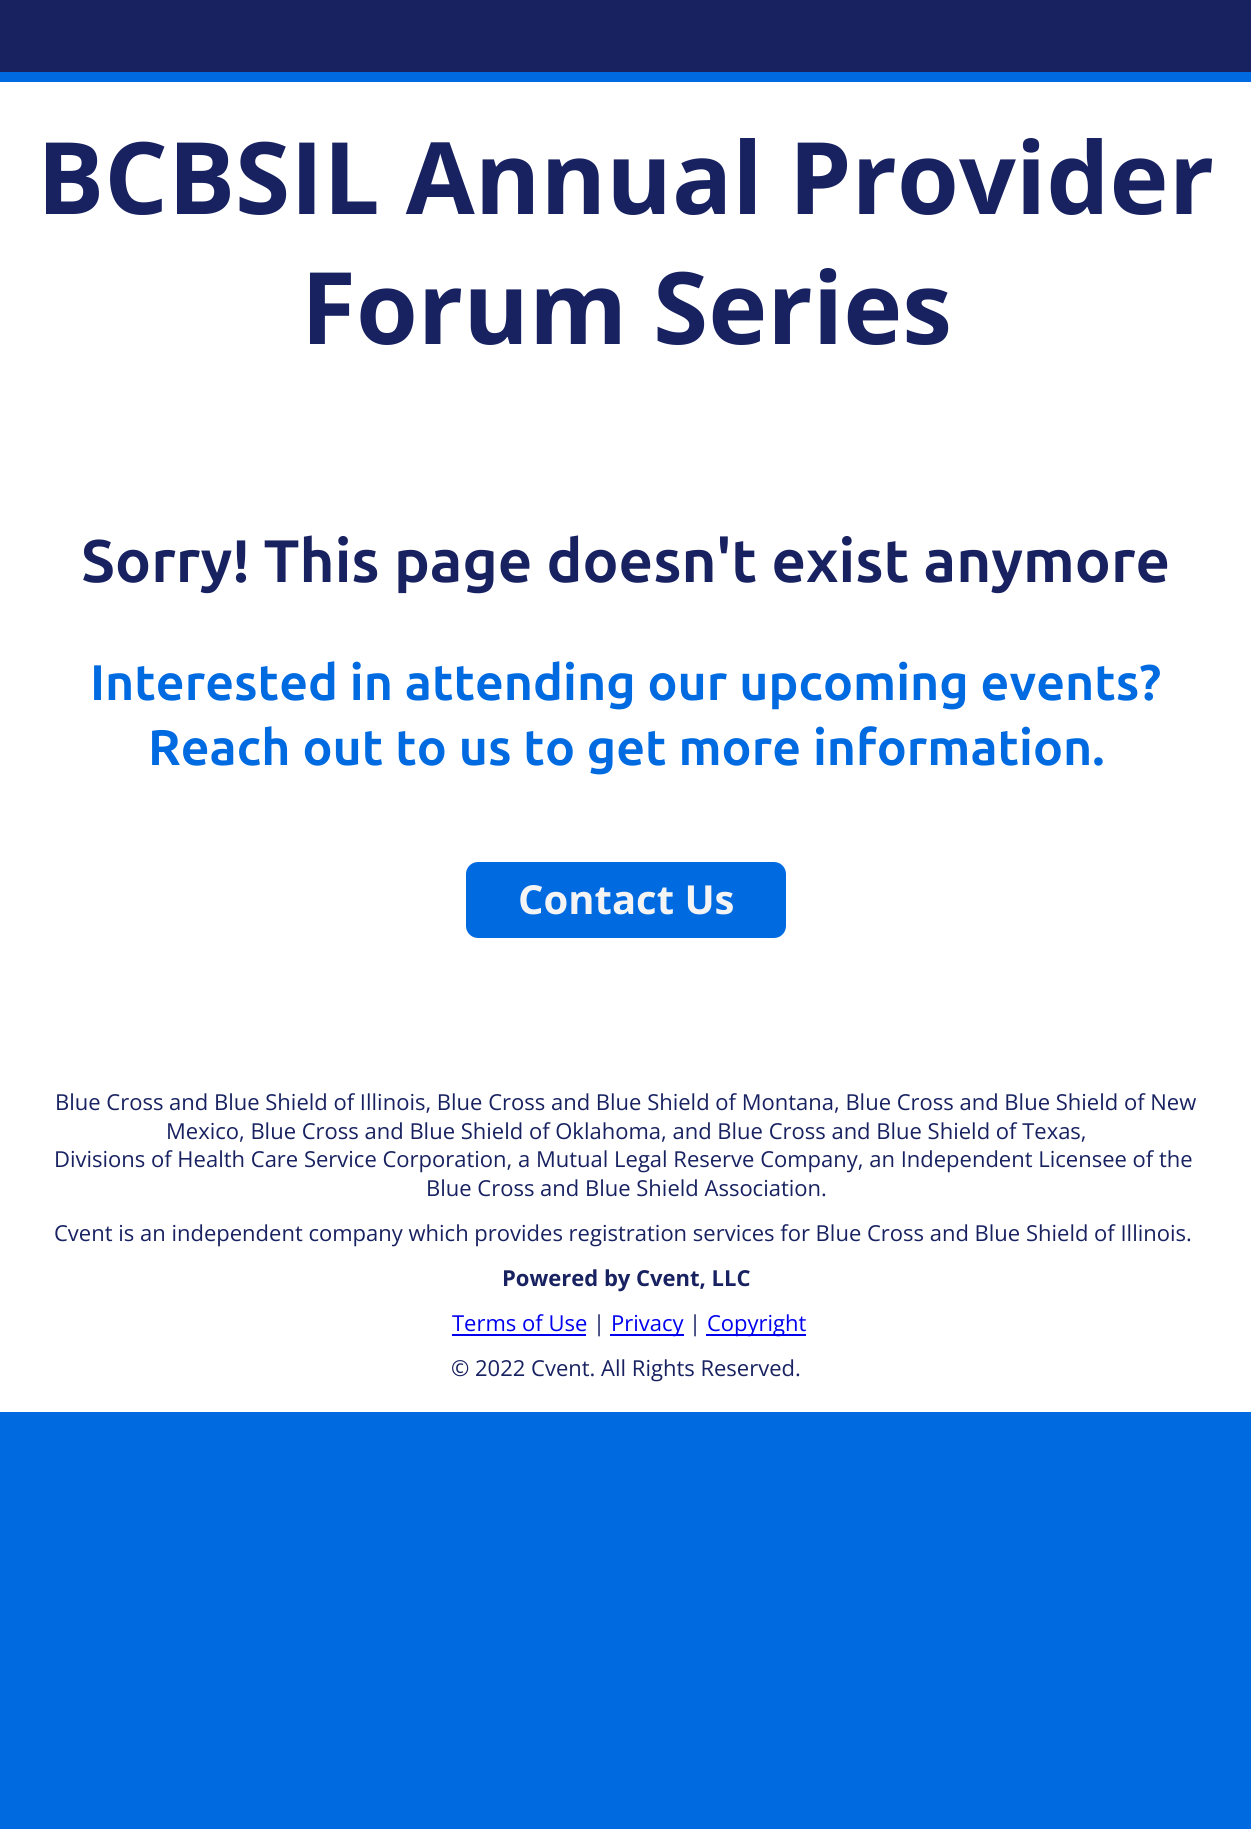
#include <cairo.h>
#include <math.h>
#include <stddef.h>


static void rgb(cairo_t *cr, int r, int g, int b)
{
	cairo_set_source_rgb(cr, r / 255.0, g / 255.0, b / 255.0);
}

static void face(cairo_t *cr, const char *family, double size, int italic, int bold)
{
	cairo_select_font_face(cr, family, italic ? CAIRO_FONT_SLANT_ITALIC : CAIRO_FONT_SLANT_NORMAL,
		bold ? CAIRO_FONT_WEIGHT_BOLD : CAIRO_FONT_WEIGHT_NORMAL);
	cairo_set_font_size(cr, size);
}

static void label(cairo_t *cr, double x, double y, const char *s)
{
	cairo_move_to(cr, x, y);
	cairo_show_text(cr, s);
}

static void rect(cairo_t *cr, double x, double y, double w, double h)
{
	cairo_rectangle(cr, x, y, w, h);
	cairo_fill(cr);
}

static void rrect(cairo_t *cr, double x, double y, double w, double h, double r)
{
	cairo_new_sub_path(cr);
	cairo_arc(cr, x + w - r, y + h - r, r, 0, M_PI / 2);
	cairo_arc(cr, x + r, y + h - r, r, M_PI / 2, M_PI);
	cairo_arc(cr, x + r, y + r, r, M_PI, 1.5 * M_PI);
	cairo_arc(cr, x + w - r, y + r, r, 1.5 * M_PI, 2 * M_PI);
	cairo_close_path(cr);
}

static void draw(cairo_t *cr) {
	rgb(cr, 0, 106, 225);
	cairo_paint(cr);
	rgb(cr, 24, 34, 97);
	rect(cr, 0, 0, 1251, 72);
	rgb(cr, 255, 255, 255);
	rect(cr, 0, 82, 1251, 1330);
	face(cr, "Open Sans", 100, 0, 1);
	rgb(cr, 24, 34, 97);
	label(cr, 37, 214, "BCBSIL Annual Provider");
	label(cr, 301, 344, "Forum Series");
	face(cr, "Ubuntu", 60, 0, 1);
	label(cr, 81, 582, "Sorry! This page doesn't exist anymore");
	face(cr, "Ubuntu", 50, 0, 1);
	rgb(cr, 0, 106, 225);
	label(cr, 90, 700, "Interested in attending our upcoming events?");
	label(cr, 148, 765, "Reach out to us to get more information.");
	rrect(cr, 467, 863, 318, 74, 11);
	cairo_fill_preserve(cr);
	cairo_stroke(cr);
	face(cr, "Open Sans", 40, 0, 1);
	rgb(cr, 244, 244, 244);
	label(cr, 518, 914, "Contact Us");
	face(cr, "Open Sans", 22, 0, 0);
	rgb(cr, 24, 34, 97);
	label(cr, 55, 1110, "Blue Cross and Blue Shield of Illinois, Blue Cross and Blue Shield of Montana, Blue Cross and Blue Shield of New");
	label(cr, 166, 1139, "Mexico, Blue Cross and Blue Shield of Oklahoma, and Blue Cross and Blue Shield of Texas,");
	label(cr, 54, 1167, "Divisions of Health Care Service Corporation, a Mutual Legal Reserve Company, an Independent Licensee of the");
	label(cr, 426, 1196, "Blue Cross and Blue Shield Association.");
	label(cr, 54, 1241, "Cvent is an independent company which provides registration services for Blue Cross and Blue Shield of Illinois.");
	face(cr, "Open Sans", 22, 0, 1);
	label(cr, 502, 1286, "Powered by Cvent, LLC");
	face(cr, "Open Sans", 22, 0, 0);
	rgb(cr, 0, 0, 238);
	label(cr, 452, 1331, "Terms of Use");
	rect(cr, 452, 1334, 134, 2);
	rgb(cr, 24, 34, 97);
	label(cr, 593, 1331, "|");
	rgb(cr, 0, 0, 238);
	rect(cr, 610, 1334, 74, 2);
	label(cr, 611, 1331, "Privacy");
	rgb(cr, 24, 34, 97);
	label(cr, 689, 1331, "|");
	rgb(cr, 0, 0, 238);
	rect(cr, 706, 1334, 100, 2);
	label(cr, 707, 1331, "Copyright");
	rgb(cr, 24, 34, 97);
	label(cr, 451, 1376, "© 2022 Cvent. All Rights Reserved.");
}

int main(void) {
	cairo_surface_t *surface = cairo_image_surface_create(CAIRO_FORMAT_RGB24, 1251, 1829);
	cairo_t *cr = cairo_create(surface);
	cairo_font_options_t *options = cairo_font_options_create();
	cairo_font_options_set_hint_metrics(options, CAIRO_HINT_METRICS_OFF);
	cairo_font_options_set_hint_style(options, CAIRO_HINT_STYLE_NONE);
	cairo_set_font_options(cr, options);
	cairo_set_miter_limit(cr, 4);
	draw(cr);
	cairo_surface_write_to_png(surface, "render.png");
	cairo_font_options_destroy(options);
	cairo_destroy(cr);
	cairo_surface_destroy(surface);
	return 0;
}
